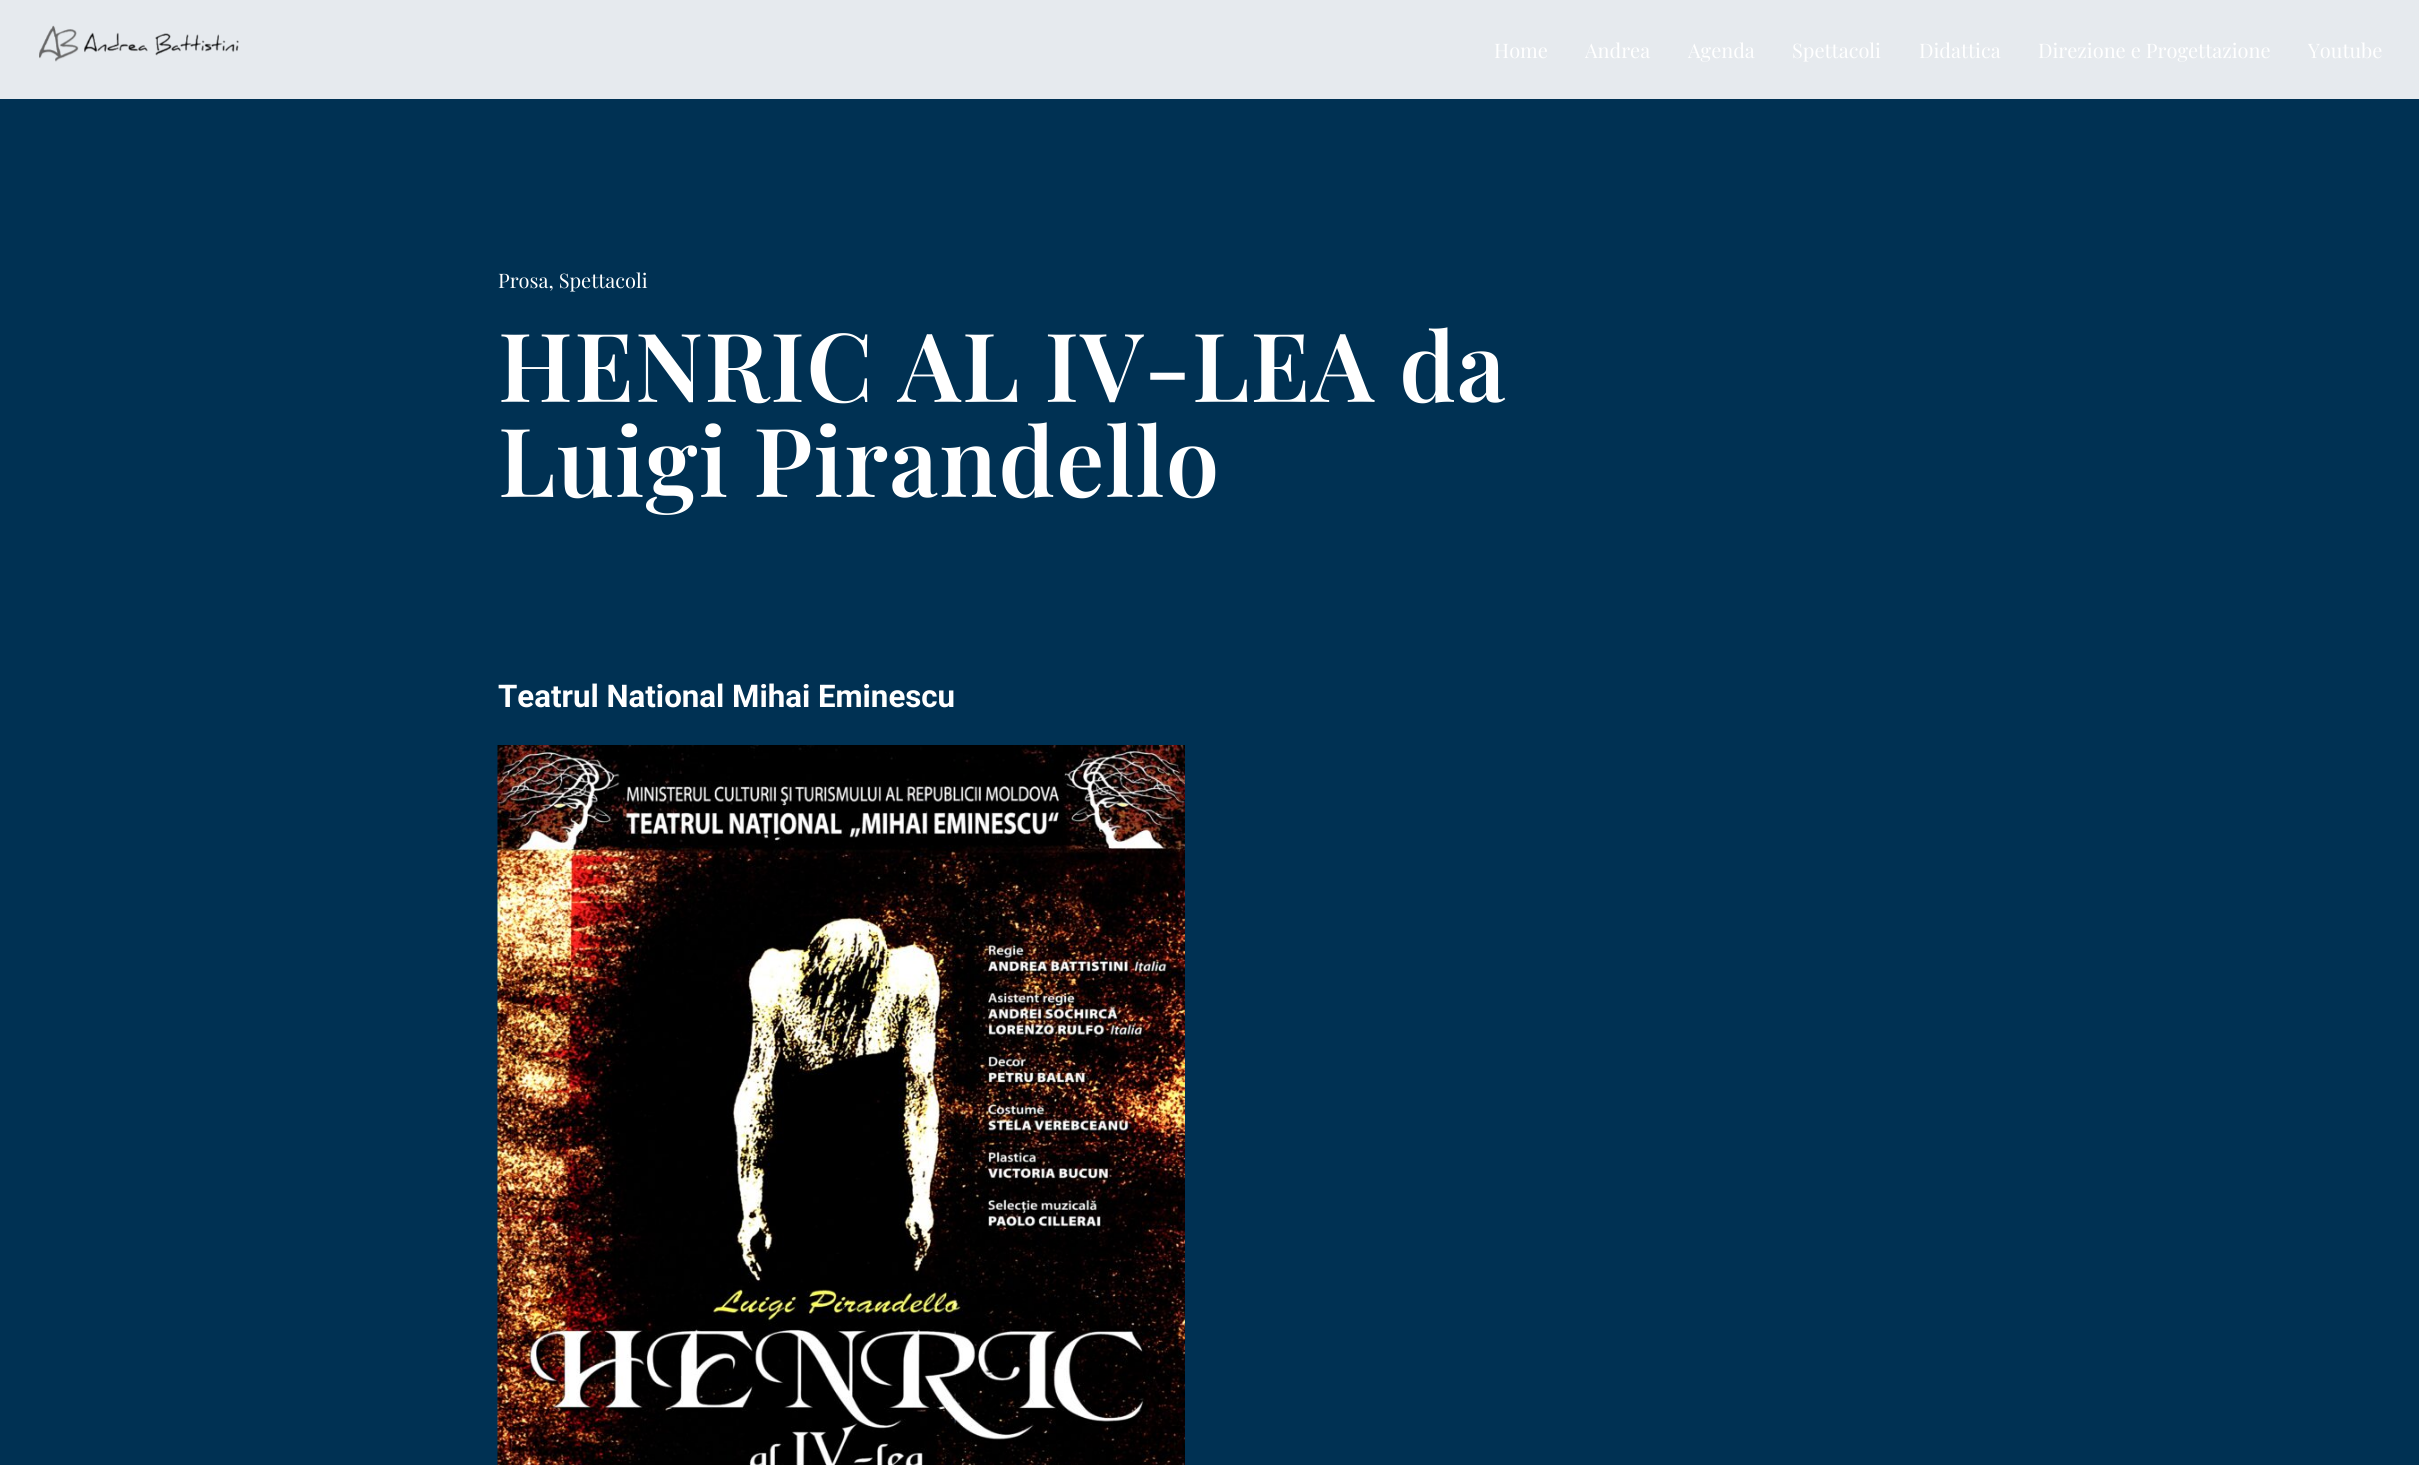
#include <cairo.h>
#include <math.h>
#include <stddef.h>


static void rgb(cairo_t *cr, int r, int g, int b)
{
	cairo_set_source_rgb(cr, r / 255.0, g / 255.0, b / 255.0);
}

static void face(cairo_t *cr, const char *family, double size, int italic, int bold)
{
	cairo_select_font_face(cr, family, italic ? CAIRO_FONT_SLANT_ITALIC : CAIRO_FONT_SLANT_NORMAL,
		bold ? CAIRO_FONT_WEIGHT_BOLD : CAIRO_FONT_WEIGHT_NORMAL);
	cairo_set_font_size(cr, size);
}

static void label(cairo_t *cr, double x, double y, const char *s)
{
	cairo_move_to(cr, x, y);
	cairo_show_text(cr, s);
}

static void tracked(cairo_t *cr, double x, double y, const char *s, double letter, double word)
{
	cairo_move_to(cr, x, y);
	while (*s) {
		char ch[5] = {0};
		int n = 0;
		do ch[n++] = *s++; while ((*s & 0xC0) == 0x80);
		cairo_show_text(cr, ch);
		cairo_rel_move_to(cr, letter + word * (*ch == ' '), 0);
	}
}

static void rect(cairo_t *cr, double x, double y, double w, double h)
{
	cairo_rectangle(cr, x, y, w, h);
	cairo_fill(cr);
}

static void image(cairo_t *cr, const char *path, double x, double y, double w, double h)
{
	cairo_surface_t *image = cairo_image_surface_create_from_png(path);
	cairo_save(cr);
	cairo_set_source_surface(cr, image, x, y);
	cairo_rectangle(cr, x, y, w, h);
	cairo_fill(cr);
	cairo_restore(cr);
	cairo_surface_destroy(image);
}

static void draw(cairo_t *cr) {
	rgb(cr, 0, 49, 83);
	cairo_paint(cr);
	rgb(cr, 230, 234, 238);
	rect(cr, 0, 0, 2419, 99);
	image(cr, "image0.png", 39, 25, 200, 37);
	face(cr, "Playfair Display", 20, 0, 0);
	rgb(cr, 255, 255, 255);
	label(cr, 1494, 58, "Home");
	label(cr, 1585, 58, "Andrea");
	label(cr, 1688, 58, "Agenda");
	label(cr, 1792, 58, "Spettacoli");
	label(cr, 1919, 58, "Didattica");
	label(cr, 2038, 58, "Direzione e Progettazione");
	label(cr, 2308, 58, "Youtube");
	label(cr, 498, 288, "Prosa, Spettacoli");
	face(cr, "Playfair Display SemiBold", 95.4, 0, 0);
	tracked(cr, 498, 402, "HENRIC AL IV-LEA da", 1.2, 0);
	tracked(cr, 498, 497, "Luigi Pirandello", 1.2, 0);
	face(cr, "Roboto", 31.25, 0, 1);
	label(cr, 498, 707, "Teatrul National Mihai Eminescu");
	image(cr, "image1.png", 497, 745, 688, 720);
}

int main(void) {
	cairo_surface_t *surface = cairo_image_surface_create(CAIRO_FORMAT_RGB24, 2419, 1465);
	cairo_t *cr = cairo_create(surface);
	cairo_font_options_t *options = cairo_font_options_create();
	cairo_font_options_set_hint_metrics(options, CAIRO_HINT_METRICS_OFF);
	cairo_font_options_set_hint_style(options, CAIRO_HINT_STYLE_NONE);
	cairo_set_font_options(cr, options);
	cairo_set_miter_limit(cr, 4);
	draw(cr);
	cairo_surface_write_to_png(surface, "render.png");
	cairo_font_options_destroy(options);
	cairo_destroy(cr);
	cairo_surface_destroy(surface);
	return 0;
}
